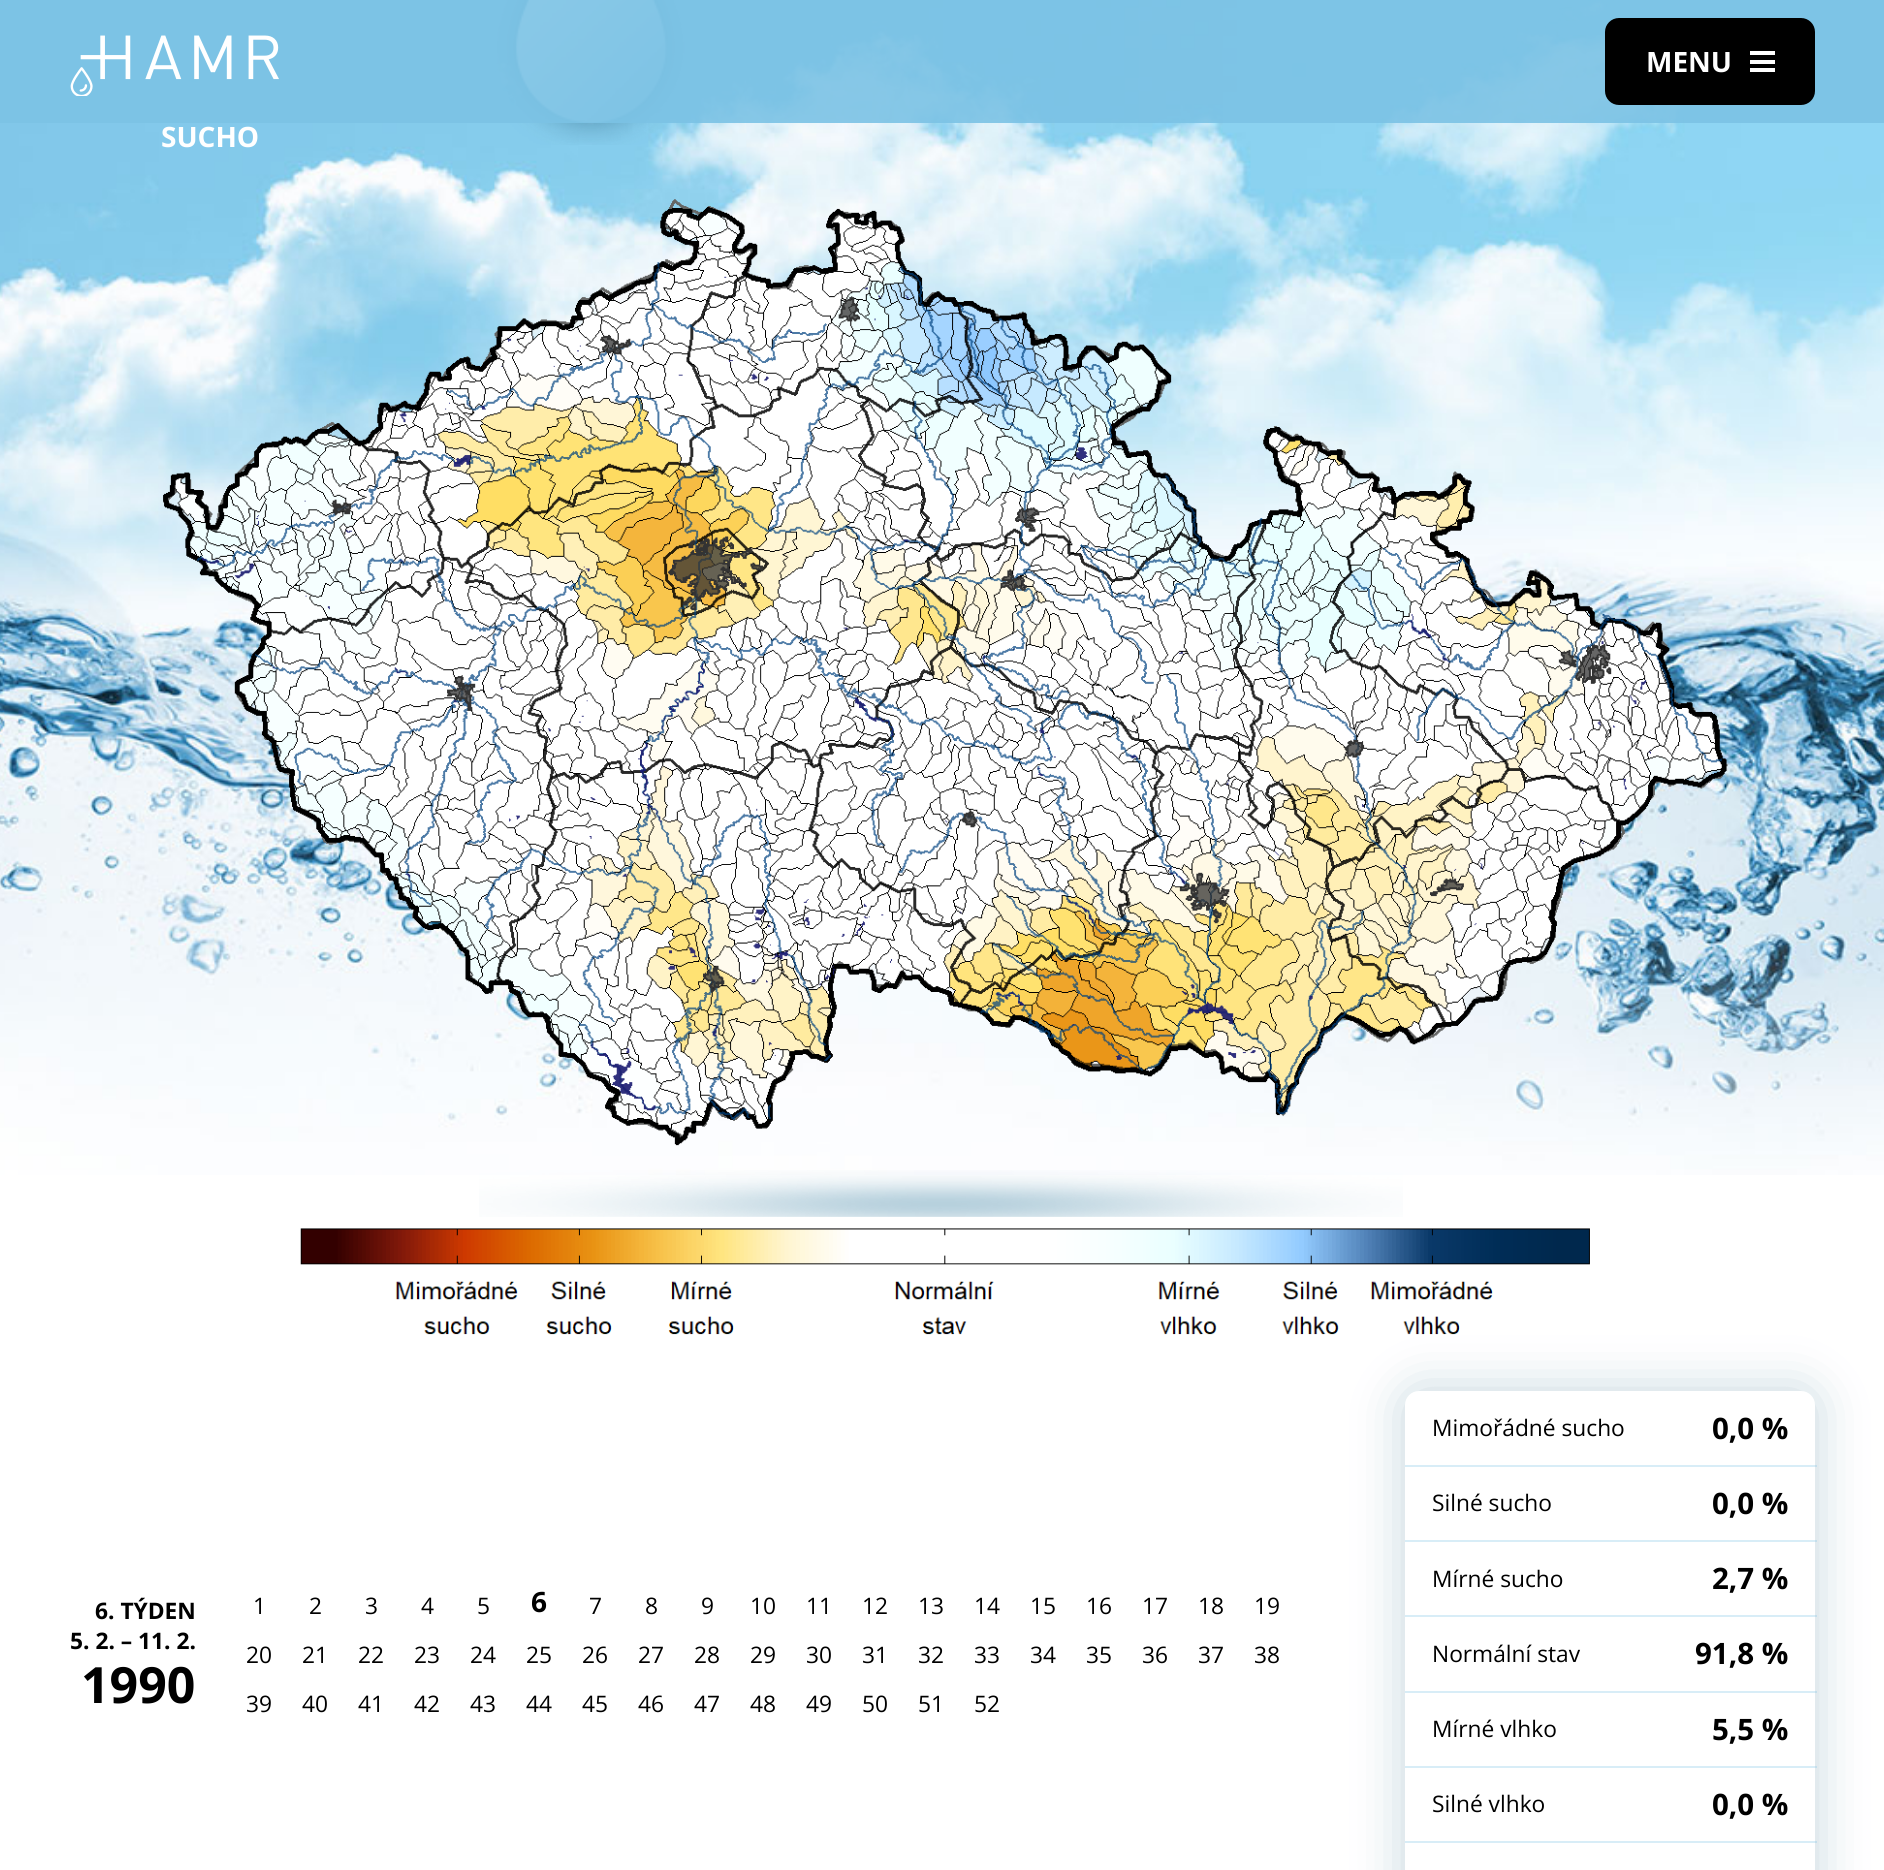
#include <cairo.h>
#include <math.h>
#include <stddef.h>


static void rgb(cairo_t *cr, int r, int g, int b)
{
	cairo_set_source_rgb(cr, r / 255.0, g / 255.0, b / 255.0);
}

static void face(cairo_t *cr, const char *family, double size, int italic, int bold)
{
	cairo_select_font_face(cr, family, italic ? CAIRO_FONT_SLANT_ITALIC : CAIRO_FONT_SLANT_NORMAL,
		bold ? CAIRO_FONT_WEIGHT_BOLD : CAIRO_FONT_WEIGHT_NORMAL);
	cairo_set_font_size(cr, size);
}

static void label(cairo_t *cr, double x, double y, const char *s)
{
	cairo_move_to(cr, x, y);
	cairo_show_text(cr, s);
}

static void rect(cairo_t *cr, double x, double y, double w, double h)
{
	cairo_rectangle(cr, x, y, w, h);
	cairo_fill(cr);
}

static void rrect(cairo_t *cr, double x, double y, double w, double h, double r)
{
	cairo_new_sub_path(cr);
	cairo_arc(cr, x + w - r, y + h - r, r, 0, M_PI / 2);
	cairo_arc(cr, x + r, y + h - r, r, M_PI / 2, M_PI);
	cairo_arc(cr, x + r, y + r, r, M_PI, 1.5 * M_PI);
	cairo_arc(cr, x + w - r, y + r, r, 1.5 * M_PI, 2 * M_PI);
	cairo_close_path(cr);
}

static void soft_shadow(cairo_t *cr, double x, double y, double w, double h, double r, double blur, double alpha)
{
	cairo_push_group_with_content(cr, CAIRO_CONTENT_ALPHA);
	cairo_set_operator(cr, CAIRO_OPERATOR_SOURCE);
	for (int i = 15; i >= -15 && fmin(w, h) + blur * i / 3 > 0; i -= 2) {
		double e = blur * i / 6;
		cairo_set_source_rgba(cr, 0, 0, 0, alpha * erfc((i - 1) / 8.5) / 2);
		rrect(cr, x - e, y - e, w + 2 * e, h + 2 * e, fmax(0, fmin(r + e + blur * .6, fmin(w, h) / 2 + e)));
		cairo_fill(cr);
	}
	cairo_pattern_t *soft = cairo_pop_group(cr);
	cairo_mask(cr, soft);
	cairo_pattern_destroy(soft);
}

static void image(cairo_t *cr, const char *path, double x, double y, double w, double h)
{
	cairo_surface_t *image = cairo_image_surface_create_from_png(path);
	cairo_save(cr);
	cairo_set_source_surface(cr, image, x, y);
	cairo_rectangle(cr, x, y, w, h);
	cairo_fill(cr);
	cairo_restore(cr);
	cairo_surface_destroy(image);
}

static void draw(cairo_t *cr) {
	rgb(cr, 255, 255, 255);
	cairo_paint(cr);
	image(cr, "image1.png", 0, 0, 1884, 1175);
	image(cr, "image2.png", 494, 0, 194, 145);
	cairo_set_source_rgba(cr, 0.486, 0.761, 0.898, 0.9);
	rect(cr, 0, 0, 1884, 123);
	image(cr, "image0.png", 70, 35, 209, 61);
	rgb(cr, 0, 0, 0);
	rrect(cr, 1605, 18, 210, 87, 14);
	cairo_fill(cr);
	face(cr, "Open Sans", 28, 0, 1);
	rgb(cr, 255, 255, 255);
	label(cr, 1646, 72, "MENU");
	rect(cr, 1750, 51, 25, 4);
	rect(cr, 1750, 60, 25, 4);
	rect(cr, 1750, 68, 25, 4);
	label(cr, 161, 147, "SUCHO");
	image(cr, "image3.png", 479, 1170, 924, 47);
	rgb(cr, 59, 117, 144);
	soft_shadow(cr, 1405, 1391, 410, 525, 14, 26, 0.3);
	image(cr, "image4.png", 163, 199, 1565, 1136);
	face(cr, "Open Sans", 22.75, 0, 1);
	rgb(cr, 0, 0, 0);
	label(cr, 95, 1619, "6. TÝDEN");
	label(cr, 70, 1649, "5. 2. – 11. 2.");
	face(cr, "Open Sans", 50, 0, 1);
	label(cr, 81, 1703, "1990");
	face(cr, "Open Sans", 22.75, 0, 0);
	label(cr, 253, 1614, "1");
	label(cr, 309, 1614, "2");
	label(cr, 365, 1614, "3");
	label(cr, 421, 1614, "4");
	label(cr, 477, 1614, "5");
	face(cr, "Open Sans", 28, 0, 1);
	label(cr, 531, 1612, "6");
	face(cr, "Open Sans", 22.75, 0, 0);
	label(cr, 589, 1614, "7");
	label(cr, 645, 1614, "8");
	label(cr, 701, 1614, "9");
	label(cr, 750, 1614, "10");
	label(cr, 806, 1614, "11");
	label(cr, 862, 1614, "12");
	label(cr, 918, 1614, "13");
	label(cr, 974, 1614, "14");
	label(cr, 1030, 1614, "15");
	label(cr, 1086, 1614, "16");
	label(cr, 1142, 1614, "17");
	label(cr, 1198, 1614, "18");
	label(cr, 1254, 1614, "19");
	label(cr, 246, 1663, "20");
	label(cr, 302, 1663, "21");
	label(cr, 358, 1663, "22");
	label(cr, 414, 1663, "23");
	label(cr, 470, 1663, "24");
	label(cr, 526, 1663, "25");
	label(cr, 582, 1663, "26");
	label(cr, 638, 1663, "27");
	label(cr, 694, 1663, "28");
	label(cr, 750, 1663, "29");
	label(cr, 806, 1663, "30");
	label(cr, 862, 1663, "31");
	label(cr, 918, 1663, "32");
	label(cr, 974, 1663, "33");
	label(cr, 1030, 1663, "34");
	label(cr, 1086, 1663, "35");
	label(cr, 1142, 1663, "36");
	label(cr, 1198, 1663, "37");
	label(cr, 1254, 1663, "38");
	label(cr, 246, 1712, "39");
	label(cr, 302, 1712, "40");
	label(cr, 358, 1712, "41");
	label(cr, 414, 1712, "42");
	label(cr, 470, 1712, "43");
	label(cr, 526, 1712, "44");
	label(cr, 582, 1712, "45");
	label(cr, 638, 1712, "46");
	label(cr, 694, 1712, "47");
	label(cr, 750, 1712, "48");
	label(cr, 806, 1712, "49");
	label(cr, 862, 1712, "50");
	label(cr, 918, 1712, "51");
	label(cr, 974, 1712, "52");
	rgb(cr, 255, 255, 255);
	rrect(cr, 1405, 1391, 410, 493, 14);
	cairo_fill(cr);
	rgb(cr, 0, 0, 0);
	label(cr, 1432, 1436, "Mimořádné sucho");
	face(cr, "Open Sans", 29.5, 0, 1);
	label(cr, 1712, 1439, "0,0 %");
	cairo_set_source_rgba(cr, 0.486, 0.761, 0.898, 0.3);
	rect(cr, 1405, 1465, 412, 2);
	face(cr, "Open Sans", 22.75, 0, 0);
	rgb(cr, 0, 0, 0);
	label(cr, 1432, 1511, "Silné sucho");
	face(cr, "Open Sans", 29.5, 0, 1);
	label(cr, 1712, 1514, "0,0 %");
	cairo_set_source_rgba(cr, 0.486, 0.761, 0.898, 0.3);
	rect(cr, 1405, 1540, 412, 2);
	face(cr, "Open Sans", 22.75, 0, 0);
	rgb(cr, 0, 0, 0);
	label(cr, 1432, 1587, "Mírné sucho");
	face(cr, "Open Sans", 29.5, 0, 1);
	label(cr, 1712, 1589, "2,7 %");
	cairo_set_source_rgba(cr, 0.486, 0.761, 0.898, 0.3);
	rect(cr, 1405, 1615, 412, 2);
	face(cr, "Open Sans", 22.75, 0, 0);
	rgb(cr, 0, 0, 0);
	label(cr, 1432, 1662, "Normální stav");
	face(cr, "Open Sans", 29.5, 0, 1);
	label(cr, 1695, 1664, "91,8 %");
	cairo_set_source_rgba(cr, 0.486, 0.761, 0.898, 0.3);
	rect(cr, 1405, 1691, 412, 2);
	face(cr, "Open Sans", 22.75, 0, 0);
	rgb(cr, 0, 0, 0);
	label(cr, 1432, 1737, "Mírné vlhko");
	face(cr, "Open Sans", 29.5, 0, 1);
	label(cr, 1712, 1740, "5,5 %");
	cairo_set_source_rgba(cr, 0.486, 0.761, 0.898, 0.3);
	rect(cr, 1405, 1766, 412, 2);
	face(cr, "Open Sans", 22.75, 0, 0);
	rgb(cr, 0, 0, 0);
	label(cr, 1432, 1812, "Silné vlhko");
	face(cr, "Open Sans", 29.5, 0, 1);
	label(cr, 1712, 1815, "0,0 %");
	cairo_set_source_rgba(cr, 0.486, 0.761, 0.898, 0.3);
	rect(cr, 1405, 1841, 412, 2);
}

int main(void) {
	cairo_surface_t *surface = cairo_image_surface_create(CAIRO_FORMAT_RGB24, 1884, 1870);
	cairo_t *cr = cairo_create(surface);
	cairo_font_options_t *options = cairo_font_options_create();
	cairo_font_options_set_hint_metrics(options, CAIRO_HINT_METRICS_OFF);
	cairo_font_options_set_hint_style(options, CAIRO_HINT_STYLE_NONE);
	cairo_set_font_options(cr, options);
	cairo_set_miter_limit(cr, 4);
	draw(cr);
	cairo_surface_write_to_png(surface, "render.png");
	cairo_font_options_destroy(options);
	cairo_destroy(cr);
	cairo_surface_destroy(surface);
	return 0;
}
